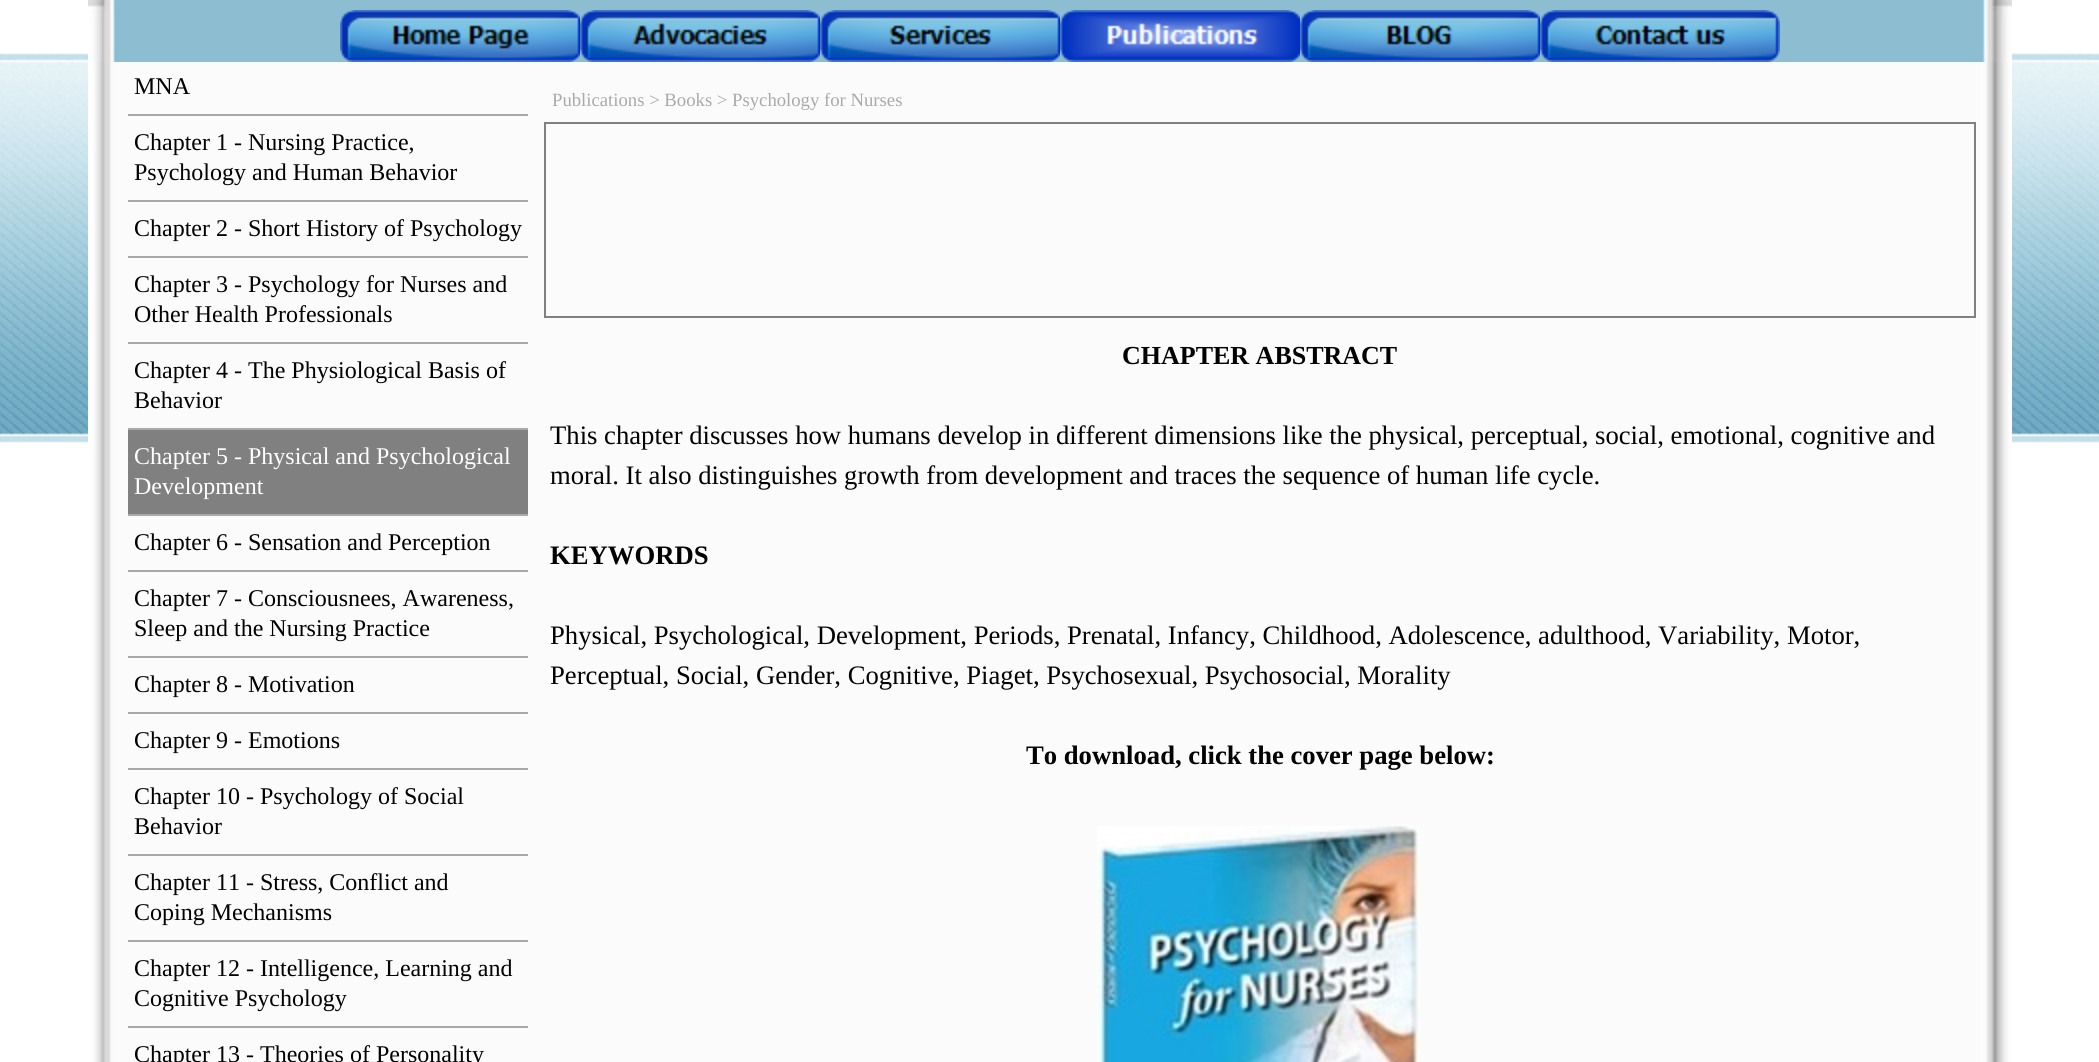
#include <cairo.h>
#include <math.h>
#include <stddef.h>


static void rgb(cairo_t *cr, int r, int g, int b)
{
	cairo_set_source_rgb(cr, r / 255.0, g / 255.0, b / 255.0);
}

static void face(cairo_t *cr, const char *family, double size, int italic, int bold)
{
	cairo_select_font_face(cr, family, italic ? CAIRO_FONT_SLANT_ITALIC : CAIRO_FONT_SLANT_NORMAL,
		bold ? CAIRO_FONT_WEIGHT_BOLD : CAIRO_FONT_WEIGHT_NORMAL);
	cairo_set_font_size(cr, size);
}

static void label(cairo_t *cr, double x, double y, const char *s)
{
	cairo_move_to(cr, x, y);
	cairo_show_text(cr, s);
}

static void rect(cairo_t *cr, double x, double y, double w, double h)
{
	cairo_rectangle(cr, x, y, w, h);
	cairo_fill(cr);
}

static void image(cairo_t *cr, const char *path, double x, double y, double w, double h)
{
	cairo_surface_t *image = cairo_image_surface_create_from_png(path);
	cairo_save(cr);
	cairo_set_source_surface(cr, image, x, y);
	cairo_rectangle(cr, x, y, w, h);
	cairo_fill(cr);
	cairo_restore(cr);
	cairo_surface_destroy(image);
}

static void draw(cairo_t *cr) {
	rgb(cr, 255, 255, 255);
	cairo_paint(cr);
	image(cr, "image0.png", 0, 53, 2099, 390);
	image(cr, "image1.png", 88, 0, 1924, 62);
	image(cr, "image2.png", 340, 10, 240, 52);
	image(cr, "image3.png", 580, 10, 240, 52);
	image(cr, "image4.png", 820, 10, 240, 52);
	image(cr, "image5.png", 1060, 10, 240, 52);
	image(cr, "image6.png", 1300, 10, 240, 52);
	image(cr, "image7.png", 1540, 10, 240, 52);
	image(cr, "image8.png", 88, 62, 1924, 1000);
	rgb(cr, 169, 169, 169);
	rect(cr, 128, 114, 400, 2);
	face(cr, "Liberation Serif", 24, 0, 0);
	rgb(cr, 0, 0, 0);
	label(cr, 134, 94, "MNA");
	rgb(cr, 169, 169, 169);
	rect(cr, 128, 200, 400, 2);
	rgb(cr, 0, 0, 0);
	label(cr, 134, 150, "Chapter 1 - Nursing Practice,");
	label(cr, 134, 180, "Psychology and Human Behavior");
	rgb(cr, 169, 169, 169);
	rect(cr, 128, 256, 400, 2);
	rgb(cr, 0, 0, 0);
	label(cr, 134, 236, "Chapter 2 - Short History of Psychology");
	rgb(cr, 169, 169, 169);
	rect(cr, 128, 342, 400, 2);
	rgb(cr, 0, 0, 0);
	label(cr, 134, 292, "Chapter 3 - Psychology for Nurses and");
	label(cr, 134, 322, "Other Health Professionals");
	rgb(cr, 169, 169, 169);
	rect(cr, 128, 428, 400, 2);
	rgb(cr, 0, 0, 0);
	label(cr, 134, 378, "Chapter 4 - The Physiological Basis of");
	label(cr, 134, 408, "Behavior");
	rgb(cr, 128, 128, 128);
	rect(cr, 128, 430, 400, 84);
	rgb(cr, 169, 169, 169);
	rect(cr, 128, 514, 400, 2);
	rgb(cr, 255, 255, 255);
	label(cr, 134, 464, "Chapter 5 - Physical and Psychological");
	label(cr, 134, 494, "Development");
	rgb(cr, 169, 169, 169);
	rect(cr, 128, 570, 400, 2);
	rgb(cr, 0, 0, 0);
	label(cr, 134, 550, "Chapter 6 - Sensation and Perception");
	rgb(cr, 169, 169, 169);
	rect(cr, 128, 656, 400, 2);
	rgb(cr, 0, 0, 0);
	label(cr, 134, 606, "Chapter 7 - Consciousnees, Awareness,");
	label(cr, 134, 636, "Sleep and the Nursing Practice");
	rgb(cr, 169, 169, 169);
	rect(cr, 128, 712, 400, 2);
	rgb(cr, 0, 0, 0);
	label(cr, 134, 692, "Chapter 8 - Motivation");
	rgb(cr, 169, 169, 169);
	rect(cr, 128, 768, 400, 2);
	rgb(cr, 0, 0, 0);
	label(cr, 134, 748, "Chapter 9 - Emotions");
	rgb(cr, 169, 169, 169);
	rect(cr, 128, 854, 400, 2);
	rgb(cr, 0, 0, 0);
	label(cr, 134, 804, "Chapter 10 - Psychology of Social");
	label(cr, 134, 834, "Behavior");
	rgb(cr, 169, 169, 169);
	rect(cr, 128, 940, 400, 2);
	rgb(cr, 0, 0, 0);
	label(cr, 134, 890, "Chapter 11 - Stress, Conflict and");
	label(cr, 134, 920, "Coping Mechanisms");
	rgb(cr, 169, 169, 169);
	rect(cr, 128, 1026, 400, 2);
	rgb(cr, 0, 0, 0);
	label(cr, 134, 976, "Chapter 12 - Intelligence, Learning and");
	label(cr, 134, 1006, "Cognitive Psychology");
	label(cr, 134, 1062, "Chapter 13 - Theories of Personality");
	face(cr, "Liberation Serif", 18.7, 0, 0);
	rgb(cr, 169, 169, 169);
	label(cr, 552, 106, "Publications > Books > Psychology for Nurses");
	cairo_rectangle(cr, 545, 123, 1430, 194);
	rgb(cr, 128, 128, 128);
	cairo_stroke(cr);
	face(cr, "Liberation Serif", 26, 0, 1);
	rgb(cr, 0, 0, 0);
	label(cr, 1122, 364, "CHAPTER ABSTRACT");
	face(cr, "Liberation Serif", 26.67, 0, 0);
	label(cr, 550, 444, "This chapter discusses how humans develop in different dimensions like the physical, perceptual, social, emotional, cognitive and");
	label(cr, 550, 484, "moral. It also distinguishes growth from development and traces the sequence of human life cycle.");
	face(cr, "Liberation Serif", 26.67, 0, 1);
	label(cr, 550, 564, "KEYWORDS");
	face(cr, "Liberation Serif", 26.67, 0, 0);
	label(cr, 550, 644, "Physical, Psychological, Development, Periods, Prenatal, Infancy, Childhood, Adolescence, adulthood, Variability, Motor,");
	label(cr, 550, 684, "Perceptual, Social, Gender, Cognitive, Piaget, Psychosexual, Psychosocial, Morality");
	face(cr, "Liberation Serif", 26.67, 0, 1);
	label(cr, 1026, 764, "To download, click the cover page below:");
	image(cr, "image9.png", 1097, 826, 323, 236);
}

int main(void) {
	cairo_surface_t *surface = cairo_image_surface_create(CAIRO_FORMAT_RGB24, 2099, 1062);
	cairo_t *cr = cairo_create(surface);
	cairo_font_options_t *options = cairo_font_options_create();
	cairo_font_options_set_hint_metrics(options, CAIRO_HINT_METRICS_OFF);
	cairo_font_options_set_hint_style(options, CAIRO_HINT_STYLE_NONE);
	cairo_set_font_options(cr, options);
	cairo_set_miter_limit(cr, 4);
	draw(cr);
	cairo_surface_write_to_png(surface, "render.png");
	cairo_font_options_destroy(options);
	cairo_destroy(cr);
	cairo_surface_destroy(surface);
	return 0;
}
